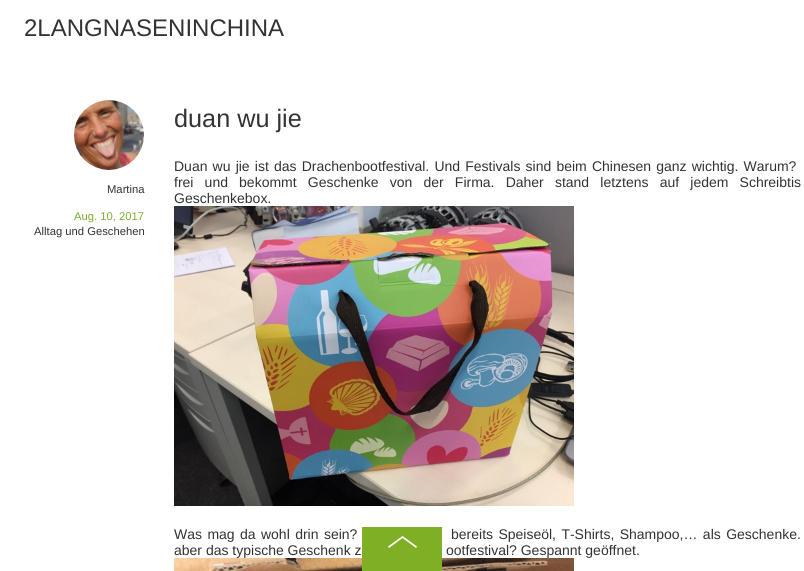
#include <cairo.h>
#include <math.h>
#include <stddef.h>


static void rgb(cairo_t *cr, int r, int g, int b)
{
	cairo_set_source_rgb(cr, r / 255.0, g / 255.0, b / 255.0);
}

static void face(cairo_t *cr, const char *family, double size, int italic, int bold)
{
	cairo_select_font_face(cr, family, italic ? CAIRO_FONT_SLANT_ITALIC : CAIRO_FONT_SLANT_NORMAL,
		bold ? CAIRO_FONT_WEIGHT_BOLD : CAIRO_FONT_WEIGHT_NORMAL);
	cairo_set_font_size(cr, size);
}

static void label(cairo_t *cr, double x, double y, const char *s)
{
	cairo_move_to(cr, x, y);
	cairo_show_text(cr, s);
}

static void tracked(cairo_t *cr, double x, double y, const char *s, double letter, double word)
{
	cairo_move_to(cr, x, y);
	while (*s) {
		char ch[5] = {0};
		int n = 0;
		do ch[n++] = *s++; while ((*s & 0xC0) == 0x80);
		cairo_show_text(cr, ch);
		cairo_rel_move_to(cr, letter + word * (*ch == ' '), 0);
	}
}

static void rect(cairo_t *cr, double x, double y, double w, double h)
{
	cairo_rectangle(cr, x, y, w, h);
	cairo_fill(cr);
}

static void image(cairo_t *cr, const char *path, double x, double y, double w, double h)
{
	cairo_surface_t *image = cairo_image_surface_create_from_png(path);
	cairo_save(cr);
	cairo_set_source_surface(cr, image, x, y);
	cairo_rectangle(cr, x, y, w, h);
	cairo_fill(cr);
	cairo_restore(cr);
	cairo_surface_destroy(image);
}

static void draw(cairo_t *cr) {
	rgb(cr, 255, 255, 255);
	cairo_paint(cr);
	face(cr, "Liberation Sans", 24, 0, 0);
	rgb(cr, 51, 51, 51);
	label(cr, 24, 36, "2LANGNASENINCHINA");
	face(cr, "Liberation Sans", 25.25, 0, 0);
	label(cr, 174, 127, "duan wu jie");
	image(cr, "image0.png", 74, 100, 70, 70);
	face(cr, "Liberation Sans", 11.25, 0, 0);
	label(cr, 107, 193, "Martina");
	rgb(cr, 127, 173, 49);
	label(cr, 74, 220, "Aug. 10, 2017");
	rgb(cr, 51, 51, 51);
	label(cr, 34, 235, "Alltag und Geschehen");
	face(cr, "Liberation Sans", 14, 0, 0);
	tracked(cr, 174, 171, "Duan wu jie ist das Drachenbootfestival. Und Festivals sind beim Chinesen ganz wichtig. Warum?", 0, 1.25);
	tracked(cr, 174, 187, "frei und bekommt Geschenke von der Firma. Daher stand letztens auf jedem Schreibtis", 0, 7.25);
	label(cr, 174, 203, "Geschenkebox.");
	image(cr, "image1.png", 174, 206, 400, 300);
	tracked(cr, 174, 539, "Was mag da wohl drin sein?", 0, 1.5);
	tracked(cr, 451, 539, "bereits Speiseöl, T-Shirts, Shampoo,… als Geschenke.", 0, 1.5);
	label(cr, 174, 555, "aber das typische Geschenk z");
	label(cr, 446, 555, "ootfestival? Gespannt geöffnet.");
	image(cr, "image2.png", 174, 558, 400, 13);
	rgb(cr, 126, 175, 36);
	rect(cr, 362, 527, 80, 44);
	rgb(cr, 255, 255, 255);
	cairo_new_path(cr);
	cairo_move_to(cr, 416, 548);
	cairo_line_to(cr, 402.5, 538);
	cairo_line_to(cr, 389, 548);
	cairo_line_to(cr, 388, 546.5);
	cairo_line_to(cr, 402.5, 536);
	cairo_line_to(cr, 417, 546.5);
	cairo_close_path(cr);
	cairo_fill(cr);
}

int main(void) {
	cairo_surface_t *surface = cairo_image_surface_create(CAIRO_FORMAT_RGB24, 804, 571);
	cairo_t *cr = cairo_create(surface);
	cairo_font_options_t *options = cairo_font_options_create();
	cairo_font_options_set_hint_metrics(options, CAIRO_HINT_METRICS_OFF);
	cairo_font_options_set_hint_style(options, CAIRO_HINT_STYLE_NONE);
	cairo_set_font_options(cr, options);
	cairo_set_miter_limit(cr, 4);
	draw(cr);
	cairo_surface_write_to_png(surface, "render.png");
	cairo_font_options_destroy(options);
	cairo_destroy(cr);
	cairo_surface_destroy(surface);
	return 0;
}
